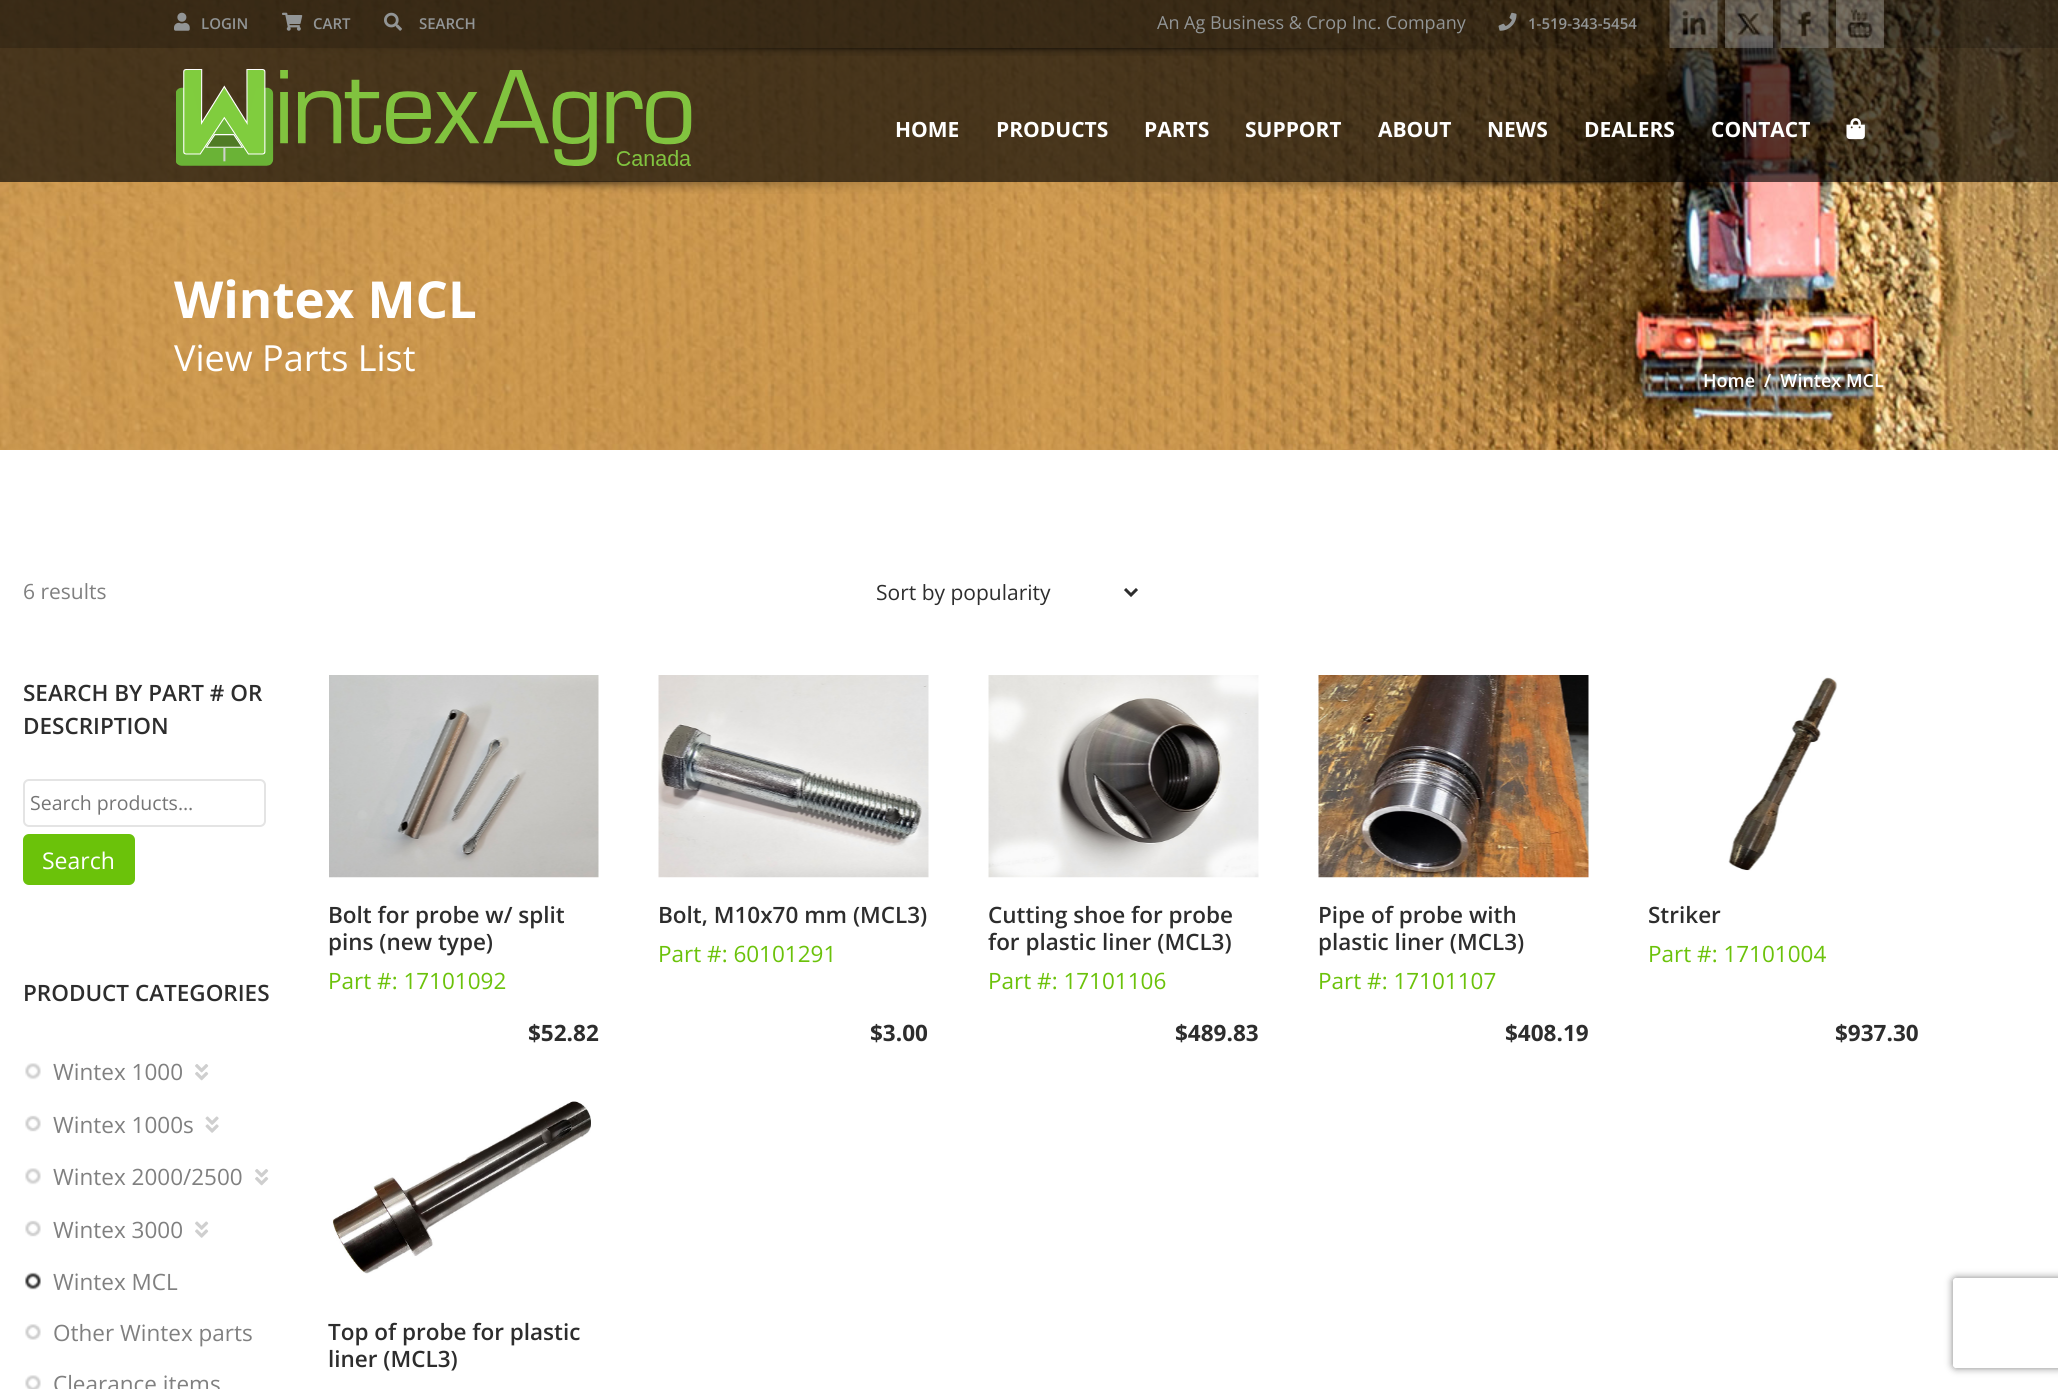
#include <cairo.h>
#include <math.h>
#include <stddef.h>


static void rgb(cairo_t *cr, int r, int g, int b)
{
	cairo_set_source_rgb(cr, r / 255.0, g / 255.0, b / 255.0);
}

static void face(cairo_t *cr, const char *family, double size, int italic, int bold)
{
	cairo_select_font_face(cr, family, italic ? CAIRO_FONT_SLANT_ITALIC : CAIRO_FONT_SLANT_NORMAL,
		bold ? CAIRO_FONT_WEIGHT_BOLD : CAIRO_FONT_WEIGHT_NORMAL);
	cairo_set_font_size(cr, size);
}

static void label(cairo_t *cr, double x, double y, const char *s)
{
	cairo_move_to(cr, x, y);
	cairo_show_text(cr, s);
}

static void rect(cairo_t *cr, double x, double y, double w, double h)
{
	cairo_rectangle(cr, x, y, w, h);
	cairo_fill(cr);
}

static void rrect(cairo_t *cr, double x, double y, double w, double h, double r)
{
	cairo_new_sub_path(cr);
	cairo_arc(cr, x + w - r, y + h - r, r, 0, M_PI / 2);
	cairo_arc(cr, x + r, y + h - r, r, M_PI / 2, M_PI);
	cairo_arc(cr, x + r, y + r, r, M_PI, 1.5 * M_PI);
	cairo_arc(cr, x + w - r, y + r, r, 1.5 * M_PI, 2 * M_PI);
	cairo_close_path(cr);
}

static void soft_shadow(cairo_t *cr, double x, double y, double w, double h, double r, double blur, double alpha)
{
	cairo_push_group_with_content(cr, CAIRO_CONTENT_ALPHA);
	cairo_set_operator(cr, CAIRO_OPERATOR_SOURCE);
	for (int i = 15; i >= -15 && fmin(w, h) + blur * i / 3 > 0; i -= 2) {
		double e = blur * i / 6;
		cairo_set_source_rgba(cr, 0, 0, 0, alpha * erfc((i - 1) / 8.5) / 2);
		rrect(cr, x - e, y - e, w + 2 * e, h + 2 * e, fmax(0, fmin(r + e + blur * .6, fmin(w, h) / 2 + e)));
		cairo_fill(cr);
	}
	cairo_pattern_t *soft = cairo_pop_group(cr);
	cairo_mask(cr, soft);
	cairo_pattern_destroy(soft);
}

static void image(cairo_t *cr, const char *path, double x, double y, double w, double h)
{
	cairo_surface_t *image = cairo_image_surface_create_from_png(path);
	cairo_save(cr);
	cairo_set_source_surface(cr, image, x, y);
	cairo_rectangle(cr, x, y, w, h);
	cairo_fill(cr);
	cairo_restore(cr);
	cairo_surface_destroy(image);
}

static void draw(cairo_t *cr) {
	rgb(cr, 255, 255, 255);
	cairo_paint(cr);
	image(cr, "image12.png", 0, 0, 2058, 450);
	cairo_set_source_rgba(cr, 0, 0, 0, 0.65);
	rect(cr, 0, 0, 2058, 182);
	cairo_set_source_rgba(cr, 0, 0, 0, 0.2);
	rect(cr, 0, 0, 2058, 48);
	image(cr, "image0.png", 174, 12, 16, 19);
	face(cr, "Open Sans SemiBold", 15, 0, 0);
	rgb(cr, 146, 149, 150);
	label(cr, 201, 29, "LOGIN");
	image(cr, "image1.png", 282, 12, 21, 19);
	label(cr, 313, 29, "CART");
	image(cr, "image2.png", 384, 12, 18, 19);
	label(cr, 419, 29, "SEARCH");
	face(cr, "Open Sans", 18, 0, 0);
	label(cr, 1157, 29, "An Ag Business & Crop Inc. Company");
	image(cr, "image3.png", 1498, 12, 19, 19);
	face(cr, "Open Sans SemiBold", 15, 0, 0);
	label(cr, 1528, 29, "1-519-343-5454");
	image(cr, "image4.png", 1669, 0, 49, 48);
	image(cr, "image5.png", 1725, 0, 48, 48);
	image(cr, "image6.png", 1780, 0, 49, 48);
	image(cr, "image7.png", 1836, 0, 48, 48);
	image(cr, "image8.png", 305, 48, 1417, 8);
	image(cr, "image9.png", 176, 69, 516, 97);
	face(cr, "Open Sans", 21, 0, 1);
	rgb(cr, 255, 255, 255);
	label(cr, 895, 137, "HOME");
	label(cr, 996, 137, "PRODUCTS");
	label(cr, 1144, 137, "PARTS");
	label(cr, 1245, 137, "SUPPORT");
	label(cr, 1378, 137, "ABOUT");
	label(cr, 1487, 137, "NEWS");
	label(cr, 1584, 137, "DEALERS");
	label(cr, 1711, 137, "CONTACT");
	image(cr, "image10.png", 1846, 118, 19, 22);
	image(cr, "image11.png", 342, 181, 1342, 13);
	face(cr, "Open Sans", 51, 0, 1);
	label(cr, 174, 318, "Wintex MCL");
	face(cr, "Open Sans", 36, 0, 0);
	label(cr, 174, 371, "View Parts List");
	face(cr, "Open Sans SemiBold", 18, 0, 0);
	label(cr, 1703, 387, "Home");
	label(cr, 1764, 387, "/  Wintex MCL");
	face(cr, "Open Sans", 21, 0, 0);
	rgb(cr, 128, 128, 128);
	label(cr, 23, 599, "6 results");
	cairo_new_path(cr);
	cairo_move_to(cr, 1125, 589);
	cairo_line_to(cr, 1131, 595);
	cairo_line_to(cr, 1137, 589);
	rgb(cr, 45, 45, 45);
	cairo_set_line_width(cr, 3);
	cairo_stroke(cr);
	label(cr, 876, 600, "Sort by popularity");
	face(cr, "Open Sans SemiBold", 22.5, 0, 0);
	label(cr, 23, 701, "SEARCH BY PART # OR");
	label(cr, 23, 734, "DESCRIPTION");
	rrect(cr, 24, 780, 241, 46, 5);
	rgb(cr, 228, 228, 228);
	cairo_set_line_width(cr, 2);
	cairo_stroke(cr);
	face(cr, "Open Sans", 19.5, 0, 0);
	rgb(cr, 117, 117, 117);
	label(cr, 30, 810, "Search products…");
	rgb(cr, 107, 194, 10);
	rrect(cr, 23, 834, 112, 51, 6);
	cairo_fill(cr);
	face(cr, "Open Sans", 23, 0, 0);
	rgb(cr, 255, 255, 255);
	label(cr, 42, 869, "Search");
	face(cr, "Open Sans SemiBold", 22.5, 0, 0);
	rgb(cr, 45, 45, 45);
	label(cr, 23, 1001, "PRODUCT CATEGORIES");
	image(cr, "image13.png", 25, 1063, 16, 17);
	face(cr, "Open Sans", 22.5, 0, 0);
	rgb(cr, 128, 128, 128);
	label(cr, 53, 1080, "Wintex 1000");
	image(cr, "image14.png", 195, 1064, 14, 17);
	image(cr, "image15.png", 25, 1115, 16, 17);
	label(cr, 53, 1133, "Wintex 1000s");
	image(cr, "image16.png", 205, 1116, 14, 17);
	image(cr, "image13.png", 25, 1168, 16, 17);
	label(cr, 53, 1185, "Wintex 2000/2500");
	image(cr, "image14.png", 255, 1169, 14, 17);
	image(cr, "image15.png", 25, 1220, 16, 17);
	label(cr, 53, 1238, "Wintex 3000");
	image(cr, "image17.png", 195, 1221, 14, 17);
	image(cr, "image18.png", 25, 1272, 16, 18);
	label(cr, 53, 1290, "Wintex MCL");
	image(cr, "image19.png", 25, 1324, 16, 16);
	label(cr, 53, 1341, "Other Wintex parts");
	image(cr, "image20.png", 25, 1375, 16, 14);
	label(cr, 53, 1392, "Clearance items");
	image(cr, "image21.png", 329, 675, 270, 203);
	face(cr, "Open Sans SemiBold", 22.5, 0, 0);
	rgb(cr, 45, 45, 45);
	label(cr, 328, 923, "Bolt for probe w/ split");
	label(cr, 328, 950, "pins (new type)");
	face(cr, "Open Sans", 22.5, 0, 0);
	rgb(cr, 107, 194, 10);
	label(cr, 328, 989, "Part #: 17101092");
	face(cr, "Open Sans", 22.5, 0, 1);
	rgb(cr, 45, 45, 45);
	label(cr, 528, 1041, "$52.82");
	image(cr, "image22.png", 658, 675, 271, 203);
	face(cr, "Open Sans SemiBold", 22.5, 0, 0);
	label(cr, 658, 923, "Bolt, M10x70 mm (MCL3)");
	face(cr, "Open Sans", 22.5, 0, 0);
	rgb(cr, 107, 194, 10);
	label(cr, 658, 962, "Part #: 60101291");
	face(cr, "Open Sans", 22.5, 0, 1);
	rgb(cr, 45, 45, 45);
	label(cr, 870, 1041, "$3.00");
	image(cr, "image23.png", 988, 675, 271, 203);
	face(cr, "Open Sans SemiBold", 22.5, 0, 0);
	label(cr, 988, 923, "Cutting shoe for probe");
	label(cr, 988, 950, "for plastic liner (MCL3)");
	face(cr, "Open Sans", 22.5, 0, 0);
	rgb(cr, 107, 194, 10);
	label(cr, 988, 989, "Part #: 17101106");
	face(cr, "Open Sans", 22.5, 0, 1);
	rgb(cr, 45, 45, 45);
	label(cr, 1175, 1041, "$489.83");
	image(cr, "image24.png", 1318, 675, 271, 203);
	face(cr, "Open Sans SemiBold", 22.5, 0, 0);
	label(cr, 1318, 923, "Pipe of probe with");
	label(cr, 1318, 950, "plastic liner (MCL3)");
	face(cr, "Open Sans", 22.5, 0, 0);
	rgb(cr, 107, 194, 10);
	label(cr, 1318, 989, "Part #: 17101107");
	face(cr, "Open Sans", 22.5, 0, 1);
	rgb(cr, 45, 45, 45);
	label(cr, 1505, 1041, "$408.19");
	image(cr, "image25.png", 1728, 677, 110, 194);
	face(cr, "Open Sans SemiBold", 22.5, 0, 0);
	label(cr, 1648, 923, "Striker");
	face(cr, "Open Sans", 22.5, 0, 0);
	rgb(cr, 107, 194, 10);
	label(cr, 1648, 962, "Part #: 17101004");
	face(cr, "Open Sans", 22.5, 0, 1);
	rgb(cr, 45, 45, 45);
	label(cr, 1835, 1041, "$937.30");
	image(cr, "image26.png", 332, 1101, 259, 173);
	face(cr, "Open Sans SemiBold", 22.5, 0, 0);
	label(cr, 328, 1340, "Top of probe for plastic");
	label(cr, 328, 1367, "liner (MCL3)");
	cairo_save(cr);
	cairo_set_fill_rule(cr, CAIRO_FILL_RULE_EVEN_ODD);
	cairo_new_path(cr);
	cairo_move_to(cr, 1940, 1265);
	cairo_line_to(cr, 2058, 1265);
	cairo_line_to(cr, 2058, 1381);
	cairo_line_to(cr, 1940, 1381);
	cairo_close_path(cr);
	cairo_move_to(cr, 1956, 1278);
	cairo_line_to(cr, 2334, 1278);
	cairo_curve_to(cr, 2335.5, 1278, 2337, 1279.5, 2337, 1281);
	cairo_line_to(cr, 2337, 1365);
	cairo_curve_to(cr, 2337, 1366.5, 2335.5, 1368, 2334, 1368);
	cairo_line_to(cr, 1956, 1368);
	cairo_curve_to(cr, 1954.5, 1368, 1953, 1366.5, 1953, 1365);
	cairo_line_to(cr, 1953, 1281);
	cairo_curve_to(cr, 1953, 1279.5, 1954.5, 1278, 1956, 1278);
	cairo_close_path(cr);
	cairo_clip(cr);
	rgb(cr, 128, 128, 128);
	soft_shadow(cr, 1953, 1278, 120, 90, 3, 4, 1);
	cairo_restore(cr);
}

int main(void) {
	cairo_surface_t *surface = cairo_image_surface_create(CAIRO_FORMAT_RGB24, 2058, 1389);
	cairo_t *cr = cairo_create(surface);
	cairo_font_options_t *options = cairo_font_options_create();
	cairo_font_options_set_hint_metrics(options, CAIRO_HINT_METRICS_OFF);
	cairo_font_options_set_hint_style(options, CAIRO_HINT_STYLE_NONE);
	cairo_set_font_options(cr, options);
	cairo_set_miter_limit(cr, 4);
	draw(cr);
	cairo_surface_write_to_png(surface, "render.png");
	cairo_font_options_destroy(options);
	cairo_destroy(cr);
	cairo_surface_destroy(surface);
	return 0;
}
